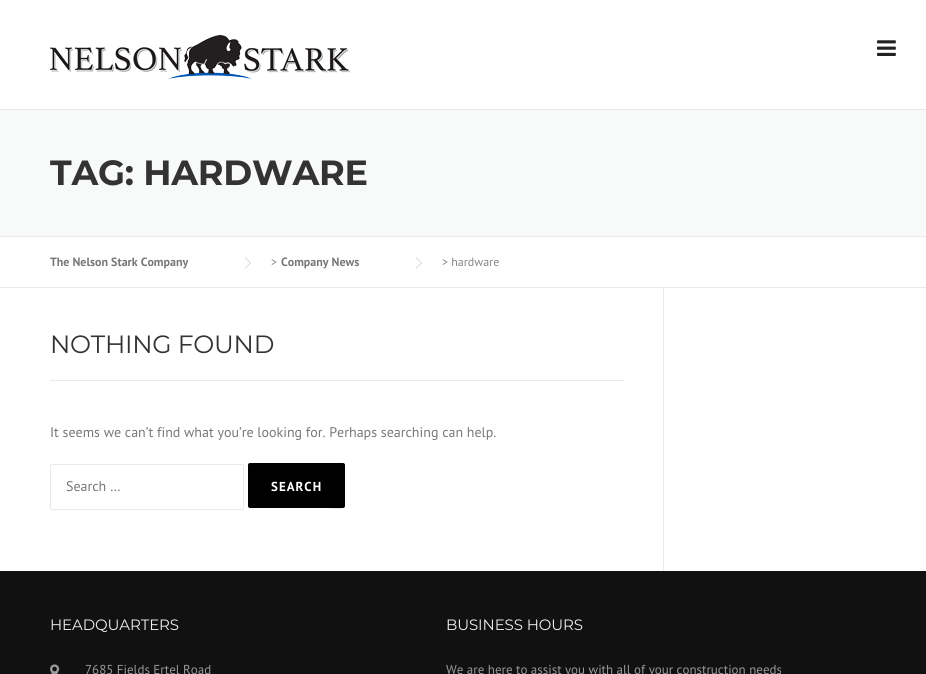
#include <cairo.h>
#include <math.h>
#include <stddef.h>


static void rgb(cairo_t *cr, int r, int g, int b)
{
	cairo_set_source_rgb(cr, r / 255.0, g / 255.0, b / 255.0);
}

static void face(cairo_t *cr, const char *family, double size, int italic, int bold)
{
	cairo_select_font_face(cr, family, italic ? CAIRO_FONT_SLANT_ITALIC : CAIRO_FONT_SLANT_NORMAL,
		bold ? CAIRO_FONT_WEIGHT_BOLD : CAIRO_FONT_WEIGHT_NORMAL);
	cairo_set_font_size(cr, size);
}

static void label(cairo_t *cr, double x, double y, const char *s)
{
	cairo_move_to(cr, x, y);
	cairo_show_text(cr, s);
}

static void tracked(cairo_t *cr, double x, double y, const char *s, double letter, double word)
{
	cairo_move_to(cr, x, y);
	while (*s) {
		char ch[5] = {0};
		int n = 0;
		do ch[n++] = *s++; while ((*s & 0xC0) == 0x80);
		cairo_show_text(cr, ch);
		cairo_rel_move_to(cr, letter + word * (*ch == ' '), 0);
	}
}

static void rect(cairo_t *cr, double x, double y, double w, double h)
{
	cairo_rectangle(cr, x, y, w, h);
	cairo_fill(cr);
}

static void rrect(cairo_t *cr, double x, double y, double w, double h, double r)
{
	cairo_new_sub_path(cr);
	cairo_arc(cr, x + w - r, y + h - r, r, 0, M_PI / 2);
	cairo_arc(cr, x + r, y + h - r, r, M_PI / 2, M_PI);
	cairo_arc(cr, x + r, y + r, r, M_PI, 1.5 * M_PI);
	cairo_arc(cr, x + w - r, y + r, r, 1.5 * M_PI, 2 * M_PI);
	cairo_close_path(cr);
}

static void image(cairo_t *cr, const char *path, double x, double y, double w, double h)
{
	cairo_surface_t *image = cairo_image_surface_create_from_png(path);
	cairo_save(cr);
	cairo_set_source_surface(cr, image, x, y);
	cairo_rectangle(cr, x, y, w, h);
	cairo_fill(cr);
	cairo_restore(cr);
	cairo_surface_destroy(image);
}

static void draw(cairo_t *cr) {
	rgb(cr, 255, 255, 255);
	cairo_paint(cr);
	image(cr, "image0.png", 50, 35, 300, 44);
	image(cr, "image1.png", 877, 40, 19, 16);
	rgb(cr, 248, 249, 249);
	rect(cr, 0, 110, 926, 126);
	rgb(cr, 233, 233, 233);
	rect(cr, 0, 109, 926, 1);
	rect(cr, 0, 236, 926, 1);
	face(cr, "Montserrat", 35, 0, 1);
	rgb(cr, 51, 51, 51);
	tracked(cr, 50, 185, "TAG: HARDWARE", -0.25, 0);
	rgb(cr, 233, 233, 233);
	rect(cr, 0, 287, 926, 1);
	face(cr, "PT Sans", 12, 0, 1);
	rgb(cr, 119, 119, 119);
	label(cr, 50, 266, "The Nelson Stark Company");
	rgb(cr, 204, 204, 204);
	cairo_new_path(cr);
	cairo_move_to(cr, 245, 269);
	cairo_line_to(cr, 245, 257);
	cairo_line_to(cr, 251, 263);
	cairo_close_path(cr);
	cairo_fill(cr);
	rgb(cr, 255, 255, 255);
	cairo_new_path(cr);
	cairo_move_to(cr, 245, 268);
	cairo_line_to(cr, 245, 258);
	cairo_line_to(cr, 250, 263);
	cairo_close_path(cr);
	cairo_fill(cr);
	face(cr, "PT Sans", 12, 0, 0);
	rgb(cr, 133, 133, 133);
	label(cr, 271, 266, ">");
	face(cr, "PT Sans", 12, 0, 1);
	rgb(cr, 119, 119, 119);
	label(cr, 281, 266, "Company News");
	rgb(cr, 204, 204, 204);
	cairo_new_path(cr);
	cairo_move_to(cr, 416, 269);
	cairo_line_to(cr, 416, 257);
	cairo_line_to(cr, 422, 263);
	cairo_close_path(cr);
	cairo_fill(cr);
	rgb(cr, 255, 255, 255);
	cairo_new_path(cr);
	cairo_move_to(cr, 416, 268);
	cairo_line_to(cr, 416, 258);
	cairo_line_to(cr, 421, 263);
	cairo_close_path(cr);
	cairo_fill(cr);
	face(cr, "PT Sans", 12, 0, 0);
	rgb(cr, 133, 133, 133);
	label(cr, 442, 266, "> hardware");
	rgb(cr, 233, 233, 233);
	rect(cr, 663, 288, 1, 283);
	rect(cr, 50, 380, 574, 1);
	face(cr, "Montserrat", 25, 0, 0);
	rgb(cr, 51, 51, 51);
	tracked(cr, 50, 353, "NOTHING FOUND", -0.25, 0);
	face(cr, "PT Sans", 14, 0, 0);
	rgb(cr, 119, 119, 119);
	label(cr, 50, 437, "It seems we can’t find what you’re looking for. Perhaps searching can help.");
	rrect(cr, 50.5, 464.5, 193, 45, 1.5);
	rgb(cr, 233, 233, 233);
	cairo_set_line_width(cr, 1);
	cairo_stroke(cr);
	rgb(cr, 119, 119, 119);
	label(cr, 66, 491, "Search …");
	rgb(cr, 0, 0, 0);
	rrect(cr, 248, 463, 97, 45, 2);
	cairo_fill(cr);
	cairo_set_source_rgba(cr, 0, 0, 0, 0.1);
	cairo_new_path(cr);
	cairo_move_to(cr, 248, 505);
	cairo_curve_to(cr, 248, 506, 248, 508, 250, 508);
	cairo_line_to(cr, 328, 508);
	cairo_curve_to(cr, 329, 508, 345, 512, 345, 505);
	cairo_curve_to(cr, 345, 506, 344, 507, 343, 507);
	cairo_line_to(cr, 250, 507);
	cairo_curve_to(cr, 249, 507, 248, 506, 248, 505);
	cairo_close_path(cr);
	cairo_fill(cr);
	face(cr, "PT Sans", 13, 0, 1);
	rgb(cr, 255, 255, 255);
	tracked(cr, 271, 491, "SEARCH", 1, 0);
	rgb(cr, 17, 17, 17);
	rect(cr, 0, 571, 926, 103);
	face(cr, "Montserrat", 15, 0, 0);
	rgb(cr, 238, 238, 238);
	tracked(cr, 50, 630, "HEADQUARTERS", -0.1, 0);
	image(cr, "image2.png", 50, 664, 10, 10);
	face(cr, "PT Sans", 13, 0, 0);
	rgb(cr, 153, 153, 153);
	label(cr, 85, 674, "7685 Fields Ertel Road");
	face(cr, "Montserrat", 15, 0, 0);
	rgb(cr, 238, 238, 238);
	tracked(cr, 446, 630, "BUSINESS HOURS", -0.1, 0);
	face(cr, "PT Sans", 13, 0, 0);
	rgb(cr, 153, 153, 153);
	label(cr, 446, 674, "We are here to assist you with all of your construction needs");
}

int main(void) {
	cairo_surface_t *surface = cairo_image_surface_create(CAIRO_FORMAT_RGB24, 926, 674);
	cairo_t *cr = cairo_create(surface);
	cairo_font_options_t *options = cairo_font_options_create();
	cairo_font_options_set_hint_metrics(options, CAIRO_HINT_METRICS_OFF);
	cairo_font_options_set_hint_style(options, CAIRO_HINT_STYLE_NONE);
	cairo_set_font_options(cr, options);
	cairo_set_miter_limit(cr, 4);
	draw(cr);
	cairo_surface_write_to_png(surface, "render.png");
	cairo_font_options_destroy(options);
	cairo_destroy(cr);
	cairo_surface_destroy(surface);
	return 0;
}
